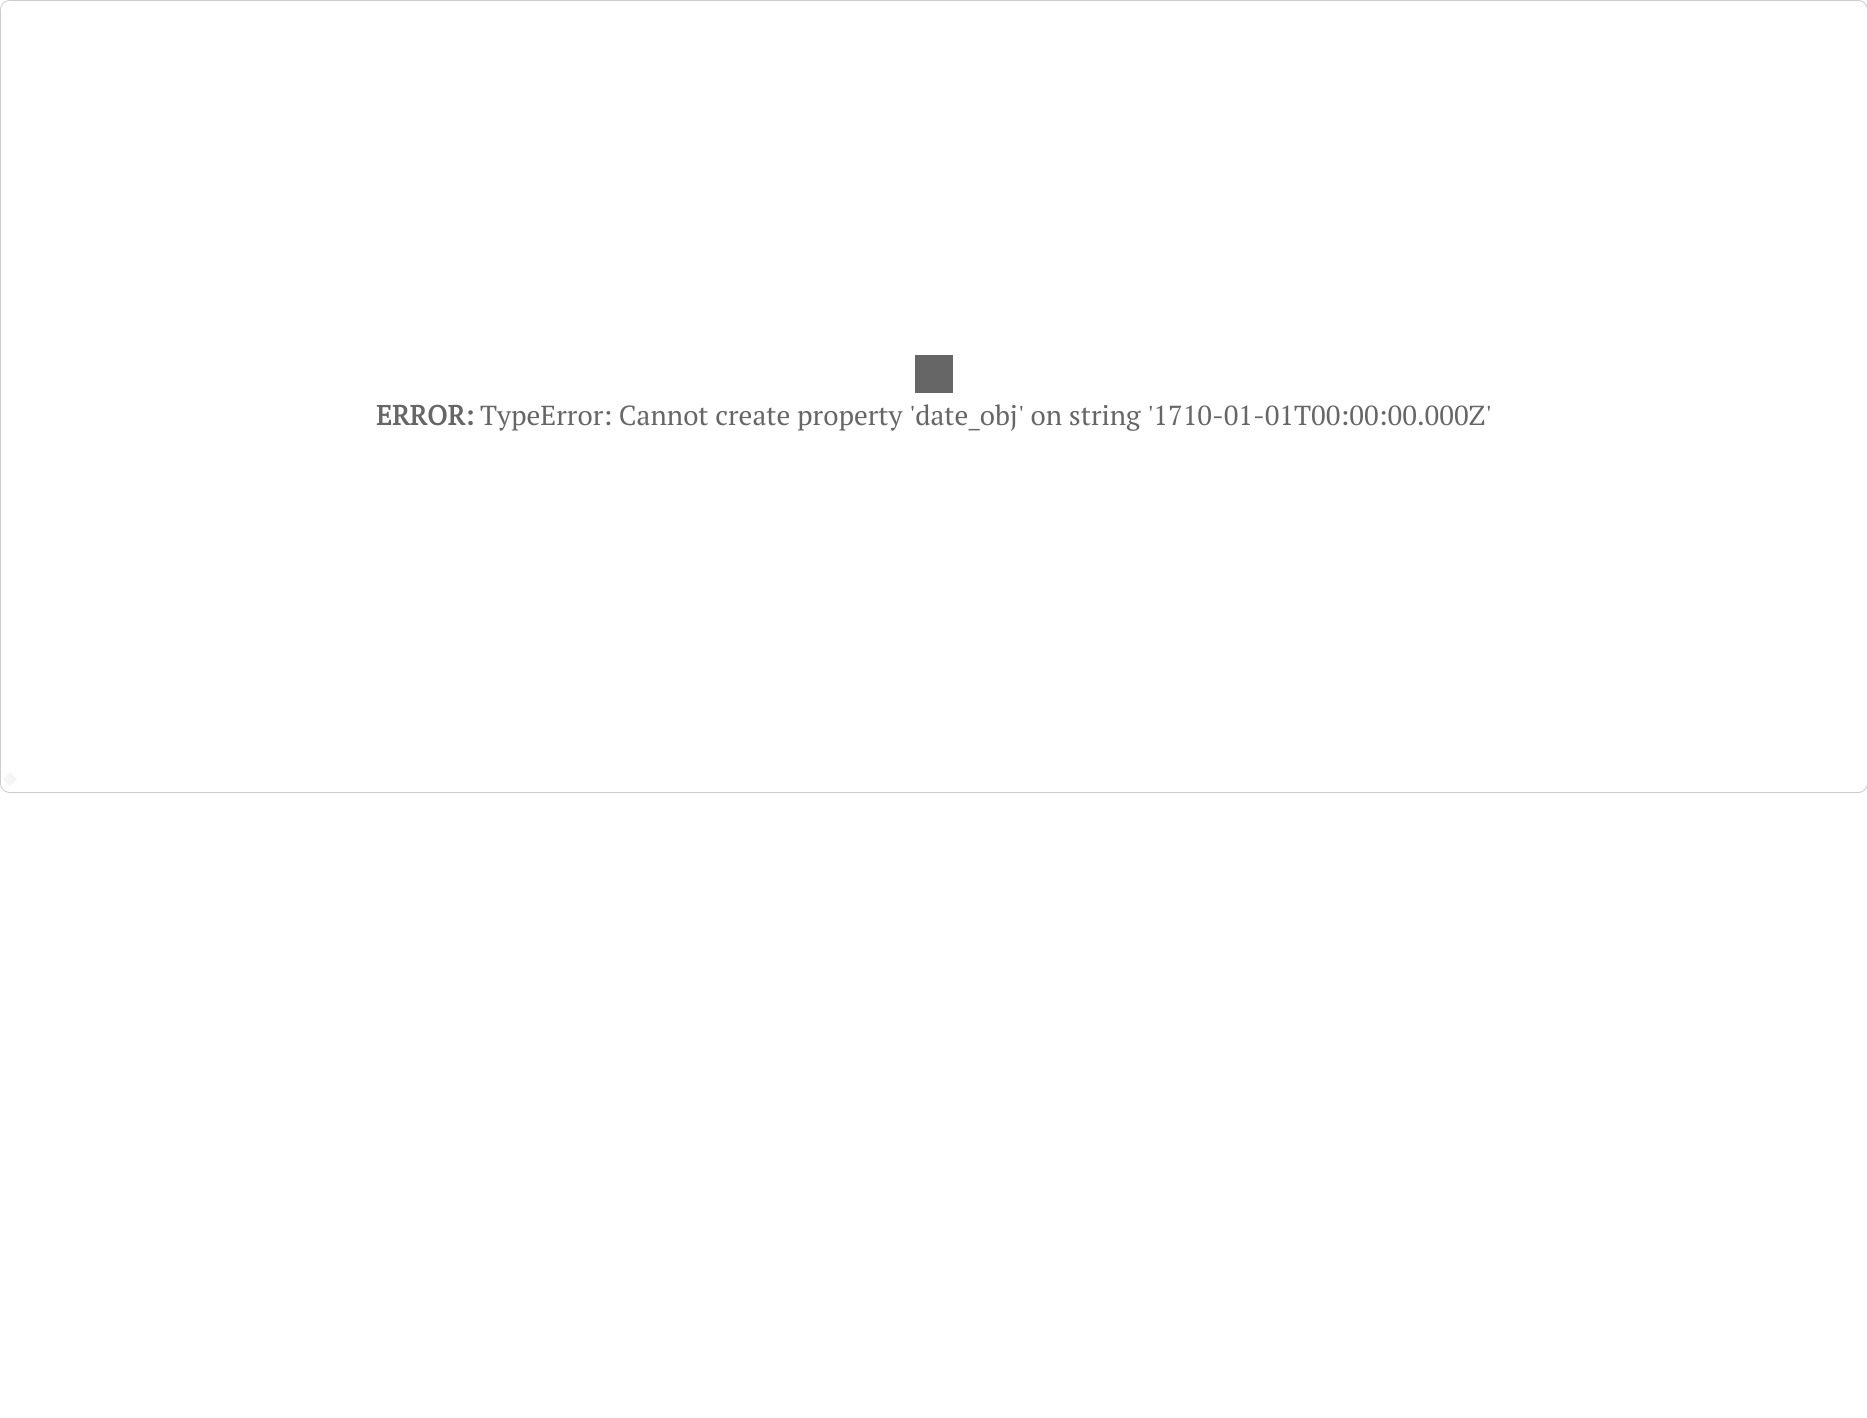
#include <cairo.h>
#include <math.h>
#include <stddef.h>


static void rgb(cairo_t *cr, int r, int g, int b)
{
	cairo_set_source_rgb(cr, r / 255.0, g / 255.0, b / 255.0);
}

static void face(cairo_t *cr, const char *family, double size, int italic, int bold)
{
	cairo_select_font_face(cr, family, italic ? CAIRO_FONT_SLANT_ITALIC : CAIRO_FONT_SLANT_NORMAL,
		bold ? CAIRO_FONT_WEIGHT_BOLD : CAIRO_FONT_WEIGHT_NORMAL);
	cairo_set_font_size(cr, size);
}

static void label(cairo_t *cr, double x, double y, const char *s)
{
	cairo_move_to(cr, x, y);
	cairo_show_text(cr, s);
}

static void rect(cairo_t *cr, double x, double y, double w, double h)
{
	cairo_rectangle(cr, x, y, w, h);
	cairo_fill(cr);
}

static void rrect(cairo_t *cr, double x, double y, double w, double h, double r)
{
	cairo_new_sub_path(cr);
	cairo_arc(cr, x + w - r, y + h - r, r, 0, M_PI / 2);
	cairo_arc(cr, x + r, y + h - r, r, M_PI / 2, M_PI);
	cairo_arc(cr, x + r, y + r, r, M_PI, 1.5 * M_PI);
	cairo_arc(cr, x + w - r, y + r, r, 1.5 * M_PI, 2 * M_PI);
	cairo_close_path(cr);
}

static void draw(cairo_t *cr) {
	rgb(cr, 255, 255, 255);
	cairo_paint(cr);
	rrect(cr, 0.5, 0.5, 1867, 792, 9.5);
	rgb(cr, 204, 204, 204);
	cairo_set_line_width(cr, 1);
	cairo_stroke(cr);
	cairo_save(cr);
	rrect(cr, 1, 1, 1865, 790, 9);
	cairo_clip(cr);
	cairo_set_source_rgba(cr, 1, 1, 1, 0.85);
	rect(cr, 1, 769, 83, 20);
	cairo_restore(cr);
	cairo_new_path(cr);
	cairo_move_to(cr, 10, 772);
	cairo_line_to(cr, 17, 779);
	cairo_line_to(cr, 10, 786.5);
	cairo_line_to(cr, 3, 779);
	cairo_close_path(cr);
	cairo_fill(cr);
	cairo_set_source_rgba(cr, 1, 1, 1, 0.8);
	rrect(cr, 1, 1, 1865, 790, 9);
	cairo_fill(cr);
	rgb(cr, 102, 102, 102);
	rect(cr, 915, 355, 38, 38);
	face(cr, "PT Serif", 27.5, 0, 1);
	label(cr, 376, 425, "ERROR:");
	face(cr, "PT Serif", 27.5, 0, 0);
	label(cr, 480, 425, "TypeError: Cannot create property 'date_obj' on string '1710-01-01T00:00:00.000Z'");
}

int main(void) {
	cairo_surface_t *surface = cairo_image_surface_create(CAIRO_FORMAT_RGB24, 1867, 1418);
	cairo_t *cr = cairo_create(surface);
	cairo_font_options_t *options = cairo_font_options_create();
	cairo_font_options_set_hint_metrics(options, CAIRO_HINT_METRICS_OFF);
	cairo_font_options_set_hint_style(options, CAIRO_HINT_STYLE_NONE);
	cairo_set_font_options(cr, options);
	cairo_set_miter_limit(cr, 4);
	draw(cr);
	cairo_surface_write_to_png(surface, "render.png");
	cairo_font_options_destroy(options);
	cairo_destroy(cr);
	cairo_surface_destroy(surface);
	return 0;
}
